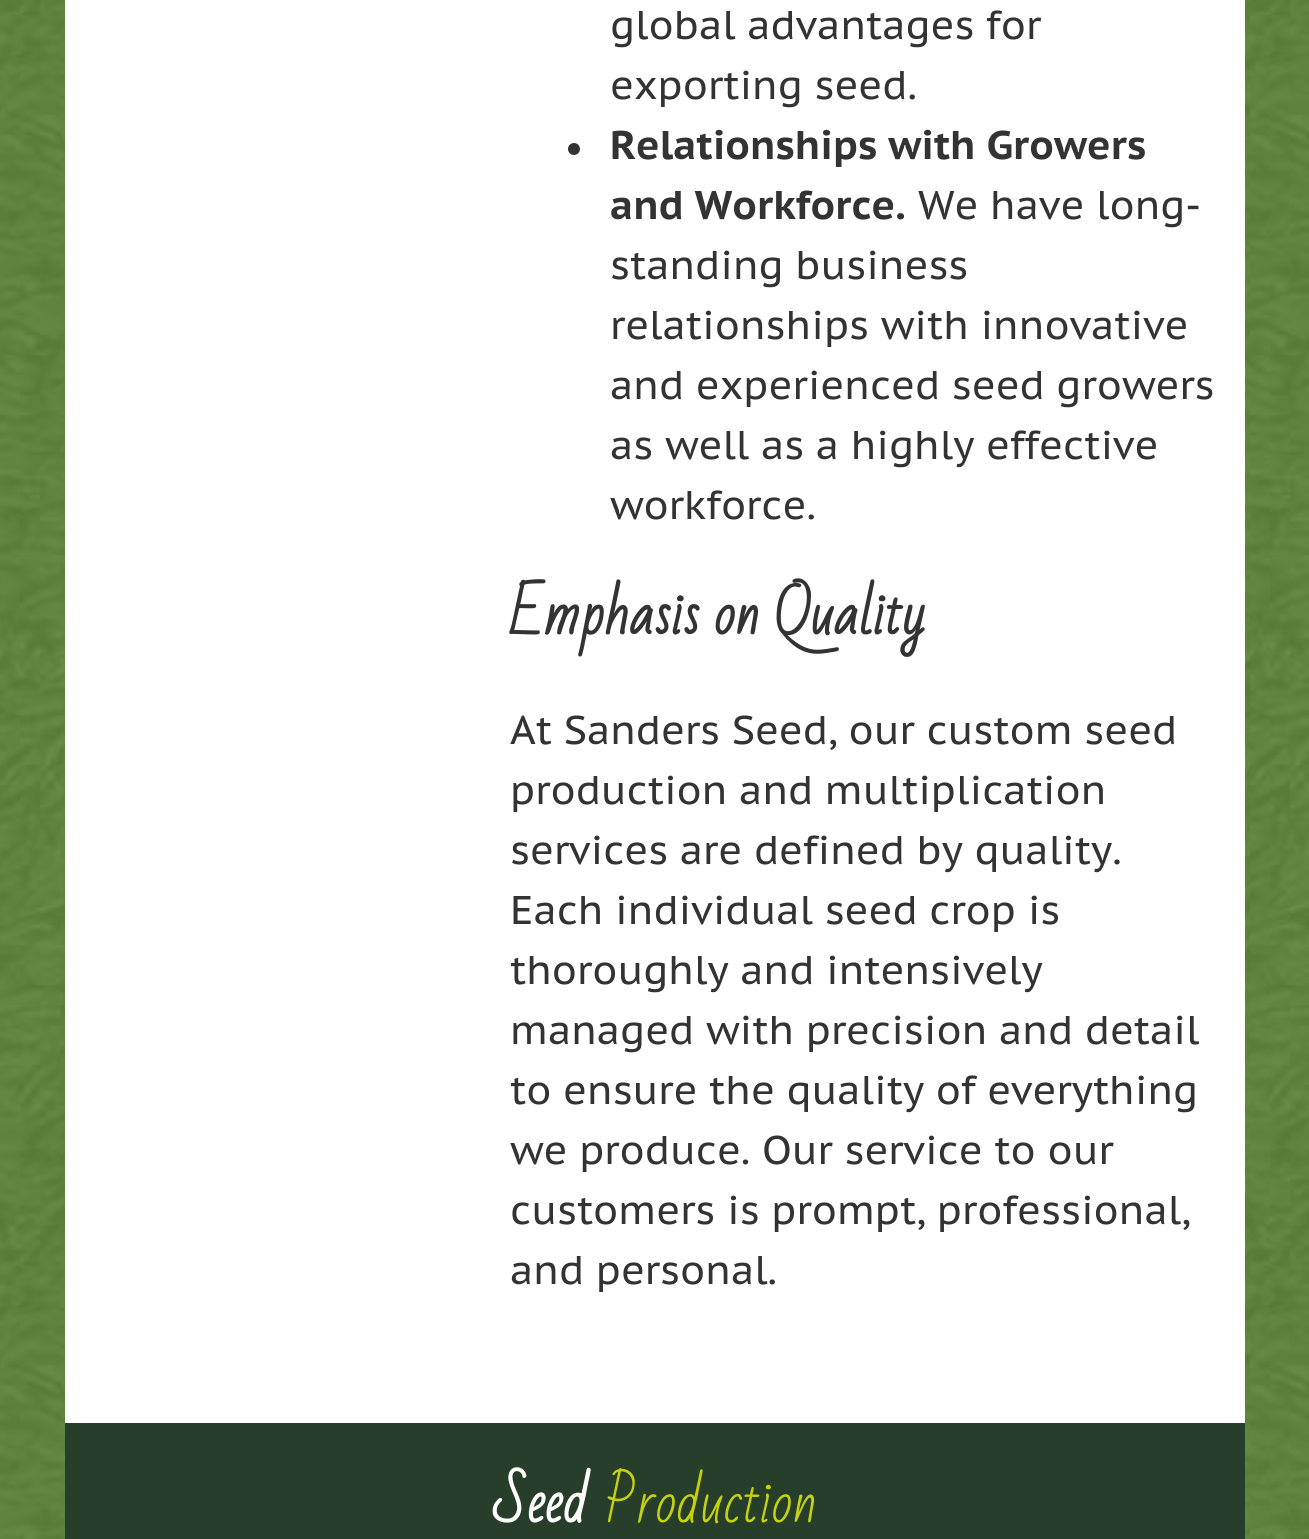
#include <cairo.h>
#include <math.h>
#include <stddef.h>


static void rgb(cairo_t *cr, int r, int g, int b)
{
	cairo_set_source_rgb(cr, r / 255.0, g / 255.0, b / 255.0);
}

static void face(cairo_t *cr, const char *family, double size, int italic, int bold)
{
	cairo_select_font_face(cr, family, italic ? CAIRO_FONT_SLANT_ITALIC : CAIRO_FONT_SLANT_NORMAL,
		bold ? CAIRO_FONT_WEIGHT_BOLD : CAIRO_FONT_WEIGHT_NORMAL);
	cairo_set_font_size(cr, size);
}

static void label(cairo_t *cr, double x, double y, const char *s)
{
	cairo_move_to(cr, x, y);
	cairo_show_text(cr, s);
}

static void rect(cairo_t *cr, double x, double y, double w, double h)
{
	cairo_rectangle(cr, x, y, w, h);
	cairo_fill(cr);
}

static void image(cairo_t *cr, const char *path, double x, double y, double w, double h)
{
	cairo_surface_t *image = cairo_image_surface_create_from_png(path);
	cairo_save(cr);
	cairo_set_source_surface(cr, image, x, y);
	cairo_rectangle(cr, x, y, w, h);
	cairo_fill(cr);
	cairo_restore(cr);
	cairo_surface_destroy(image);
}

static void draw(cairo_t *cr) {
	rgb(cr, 255, 255, 255);
	cairo_paint(cr);
	image(cr, "image0.png", 0, 0, 1309, 1539);
	rgb(cr, 255, 255, 255);
	rect(cr, 65, 0, 1180, 1423);
	face(cr, "PT Sans Caption", 40, 0, 0);
	rgb(cr, 51, 51, 51);
	label(cr, 610, 39, "global advantages for");
	label(cr, 610, 99, "exporting seed.");
	cairo_new_path(cr);
	cairo_arc(cr, 574, 149, 6, 0, 2 * M_PI);
	cairo_fill(cr);
	face(cr, "PT Sans Caption", 40, 0, 1);
	label(cr, 610, 159, "Relationships with Growers");
	label(cr, 610, 219, "and Workforce.");
	face(cr, "PT Sans Caption", 40, 0, 0);
	label(cr, 918, 219, "We have long-");
	label(cr, 610, 279, "standing business");
	label(cr, 610, 339, "relationships with innovative");
	label(cr, 610, 399, "and experienced seed growers");
	label(cr, 610, 459, "as well as a highly effective");
	label(cr, 610, 519, "workforce.");
	face(cr, "Bad Script", 55, 0, 1);
	label(cr, 510, 634, "Emphasis on Quality");
	face(cr, "PT Sans Caption", 40, 0, 0);
	label(cr, 510, 744, "At Sanders Seed, our custom seed");
	label(cr, 510, 804, "production and multiplication");
	label(cr, 510, 864, "services are defined by quality.");
	label(cr, 510, 924, "Each individual seed crop is");
	label(cr, 510, 984, "thoroughly and intensively");
	label(cr, 510, 1044, "managed with precision and detail");
	label(cr, 510, 1104, "to ensure the quality of everything");
	label(cr, 510, 1164, "we produce. Our service to our");
	label(cr, 510, 1224, "customers is prompt, professional,");
	label(cr, 510, 1284, "and personal.");
	rgb(cr, 39, 63, 42);
	rect(cr, 65, 1423, 1180, 116);
	face(cr, "Bad Script", 55, 0, 1);
	rgb(cr, 255, 255, 255);
	label(cr, 493, 1522, "Seed");
	face(cr, "Bad Script", 55, 0, 0);
	rgb(cr, 198, 211, 11);
	label(cr, 605, 1522, "Production");
}

int main(void) {
	cairo_surface_t *surface = cairo_image_surface_create(CAIRO_FORMAT_RGB24, 1309, 1539);
	cairo_t *cr = cairo_create(surface);
	cairo_font_options_t *options = cairo_font_options_create();
	cairo_font_options_set_hint_metrics(options, CAIRO_HINT_METRICS_OFF);
	cairo_font_options_set_hint_style(options, CAIRO_HINT_STYLE_NONE);
	cairo_set_font_options(cr, options);
	cairo_set_miter_limit(cr, 4);
	draw(cr);
	cairo_surface_write_to_png(surface, "render.png");
	cairo_font_options_destroy(options);
	cairo_destroy(cr);
	cairo_surface_destroy(surface);
	return 0;
}
